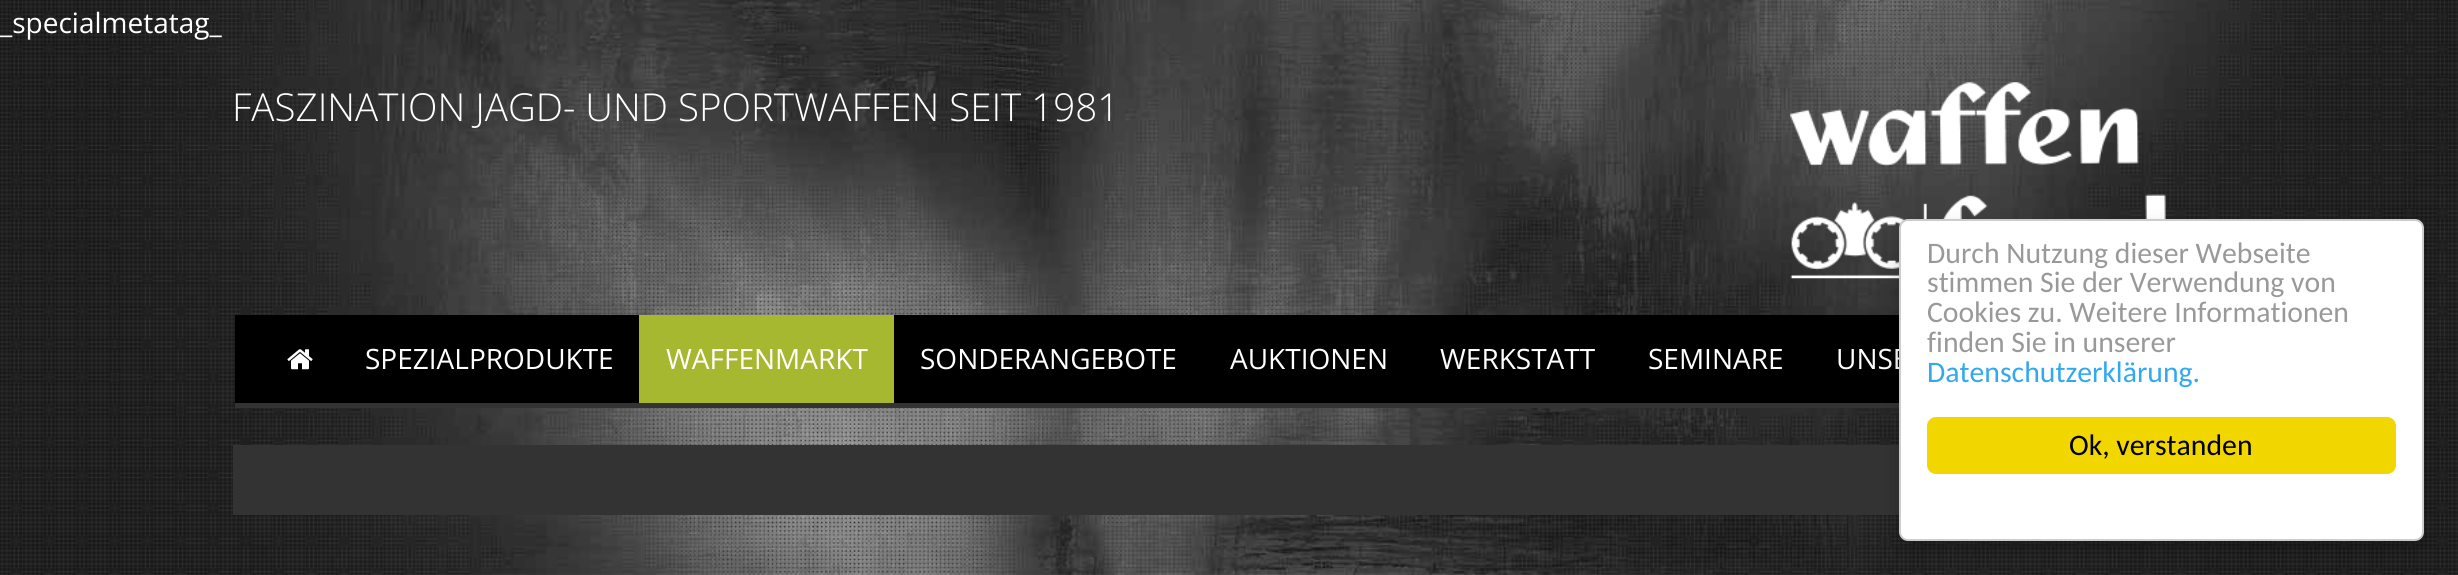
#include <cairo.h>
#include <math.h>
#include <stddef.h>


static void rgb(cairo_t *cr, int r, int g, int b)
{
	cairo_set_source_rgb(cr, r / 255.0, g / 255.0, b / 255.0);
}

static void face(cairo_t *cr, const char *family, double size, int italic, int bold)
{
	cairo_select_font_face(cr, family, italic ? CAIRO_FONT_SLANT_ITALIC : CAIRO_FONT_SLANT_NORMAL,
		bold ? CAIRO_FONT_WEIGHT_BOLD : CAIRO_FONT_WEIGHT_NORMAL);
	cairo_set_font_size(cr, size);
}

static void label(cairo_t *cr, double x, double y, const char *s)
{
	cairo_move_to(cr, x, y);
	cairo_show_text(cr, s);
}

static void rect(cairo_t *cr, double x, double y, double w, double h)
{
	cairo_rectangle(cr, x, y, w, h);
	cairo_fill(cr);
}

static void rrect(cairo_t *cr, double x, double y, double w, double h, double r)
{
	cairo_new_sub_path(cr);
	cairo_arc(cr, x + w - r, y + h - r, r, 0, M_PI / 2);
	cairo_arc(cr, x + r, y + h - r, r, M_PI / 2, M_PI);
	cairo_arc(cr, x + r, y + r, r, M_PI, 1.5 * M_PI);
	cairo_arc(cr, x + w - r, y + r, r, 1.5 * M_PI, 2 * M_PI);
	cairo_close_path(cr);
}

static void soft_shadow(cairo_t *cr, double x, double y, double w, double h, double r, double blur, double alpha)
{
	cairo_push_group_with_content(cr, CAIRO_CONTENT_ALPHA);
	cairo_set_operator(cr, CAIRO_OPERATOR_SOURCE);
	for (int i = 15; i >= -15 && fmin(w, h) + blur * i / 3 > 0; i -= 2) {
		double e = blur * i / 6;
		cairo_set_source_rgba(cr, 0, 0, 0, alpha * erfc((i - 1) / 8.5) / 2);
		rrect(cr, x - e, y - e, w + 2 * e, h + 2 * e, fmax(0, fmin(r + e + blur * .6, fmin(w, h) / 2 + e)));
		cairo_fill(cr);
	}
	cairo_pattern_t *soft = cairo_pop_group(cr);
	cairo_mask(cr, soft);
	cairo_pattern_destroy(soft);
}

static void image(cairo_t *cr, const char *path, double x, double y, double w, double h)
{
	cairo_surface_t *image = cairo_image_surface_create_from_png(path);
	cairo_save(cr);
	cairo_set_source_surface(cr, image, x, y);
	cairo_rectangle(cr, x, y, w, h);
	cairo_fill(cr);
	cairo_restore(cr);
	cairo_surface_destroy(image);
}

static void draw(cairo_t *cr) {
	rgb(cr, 255, 255, 255);
	cairo_paint(cr);
	image(cr, "image0.png", 0, 0, 2458, 575);
	face(cr, "Open Sans", 28, 0, 0);
	rgb(cr, 255, 255, 255);
	label(cr, 0, 33, "_specialmetatag_");
	face(cr, "Open Sans Light", 38.5, 0, 0);
	label(cr, 232, 121, "FASZINATION JAGD- UND SPORTWAFFEN SEIT 1981");
	image(cr, "image1.png", 1790, 82, 376, 197);
	rgb(cr, 0, 0, 0);
	rect(cr, 235, 315, 1664, 88);
	rgb(cr, 51, 51, 51);
	rect(cr, 235, 403, 1664, 5);
	image(cr, "image2.png", 287, 349, 26, 21);
	face(cr, "Open Sans", 28, 0, 0);
	rgb(cr, 255, 255, 255);
	label(cr, 365, 369, "SPEZIALPRODUKTE");
	rgb(cr, 166, 184, 48);
	rect(cr, 639, 315, 255, 88);
	rgb(cr, 255, 255, 255);
	label(cr, 666, 369, "WAFFENMARKT");
	label(cr, 920, 369, "SONDERANGEBOTE");
	label(cr, 1230, 369, "AUKTIONEN");
	label(cr, 1440, 369, "WERKSTATT");
	label(cr, 1648, 369, "SEMINARE");
	label(cr, 1836, 369, "UNSE");
	rgb(cr, 51, 51, 51);
	rect(cr, 233, 445, 1666, 70);
	rgb(cr, 0, 0, 0);
	soft_shadow(cr, 1899, 228, 525, 322, 9, 9, 0.2);
	rgb(cr, 255, 255, 255);
	rrect(cr, 1900, 220, 523, 320, 8);
	cairo_fill_preserve(cr);
	rgb(cr, 204, 204, 204);
	cairo_stroke(cr);
	face(cr, "Carlito", 29.75, 0, 0);
	rgb(cr, 153, 153, 153);
	label(cr, 1927, 263, "Durch Nutzung dieser Webseite");
	label(cr, 1927, 292, "stimmen Sie der Verwendung von");
	label(cr, 1927, 322, "Cookies zu. Weitere Informationen");
	label(cr, 1927, 352, "finden Sie in unserer");
	rgb(cr, 49, 168, 240);
	label(cr, 1927, 382, "Datenschutzerklärung.");
	rgb(cr, 241, 214, 0);
	rrect(cr, 1927, 417, 469, 57, 9);
	cairo_fill(cr);
	rgb(cr, 0, 0, 0);
	label(cr, 2069, 455, "Ok, verstanden");
}

int main(void) {
	cairo_surface_t *surface = cairo_image_surface_create(CAIRO_FORMAT_RGB24, 2458, 575);
	cairo_t *cr = cairo_create(surface);
	cairo_font_options_t *options = cairo_font_options_create();
	cairo_font_options_set_hint_metrics(options, CAIRO_HINT_METRICS_OFF);
	cairo_font_options_set_hint_style(options, CAIRO_HINT_STYLE_NONE);
	cairo_set_font_options(cr, options);
	cairo_set_miter_limit(cr, 4);
	draw(cr);
	cairo_surface_write_to_png(surface, "render.png");
	cairo_font_options_destroy(options);
	cairo_destroy(cr);
	cairo_surface_destroy(surface);
	return 0;
}
